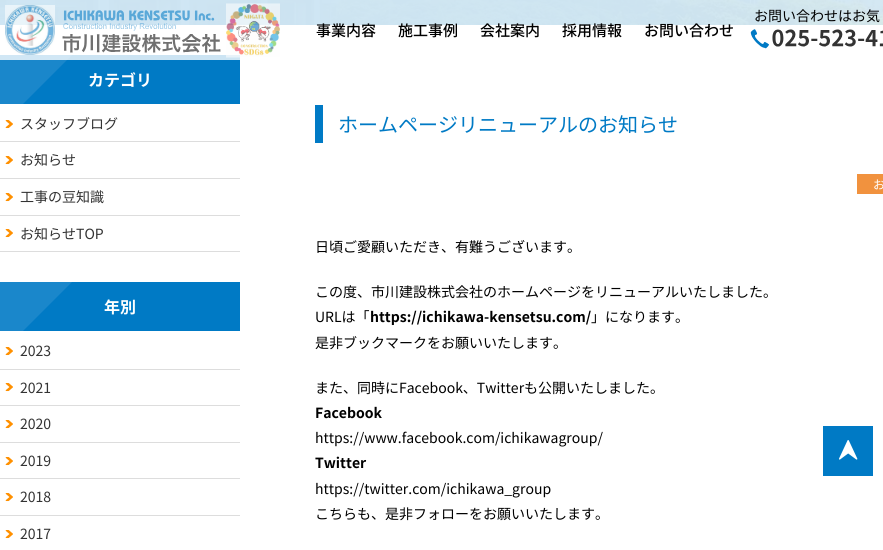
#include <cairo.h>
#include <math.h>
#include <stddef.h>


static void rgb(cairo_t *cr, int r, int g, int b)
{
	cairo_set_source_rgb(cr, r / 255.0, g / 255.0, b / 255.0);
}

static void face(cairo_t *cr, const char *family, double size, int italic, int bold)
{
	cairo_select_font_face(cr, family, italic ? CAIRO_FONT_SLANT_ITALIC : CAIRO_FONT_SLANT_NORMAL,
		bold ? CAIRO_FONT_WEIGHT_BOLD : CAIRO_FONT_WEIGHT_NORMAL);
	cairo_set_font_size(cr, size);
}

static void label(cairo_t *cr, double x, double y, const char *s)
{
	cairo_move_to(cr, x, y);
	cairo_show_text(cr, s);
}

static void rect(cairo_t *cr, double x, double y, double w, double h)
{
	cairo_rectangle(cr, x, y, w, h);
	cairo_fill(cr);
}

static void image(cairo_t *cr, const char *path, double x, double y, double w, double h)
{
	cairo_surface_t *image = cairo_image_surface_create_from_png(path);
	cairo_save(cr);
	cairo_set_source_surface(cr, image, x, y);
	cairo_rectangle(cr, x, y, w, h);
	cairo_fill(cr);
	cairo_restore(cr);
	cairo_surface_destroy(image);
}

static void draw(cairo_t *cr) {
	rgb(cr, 255, 255, 255);
	cairo_paint(cr);
	image(cr, "image2.png", 0, 0, 883, 25);
	image(cr, "image3.png", 0, 0, 883, 25);
	rgb(cr, 0, 122, 197);
	rect(cr, 23, 55, 217, 49);
	cairo_save(cr);
	cairo_rectangle(cr, 0, 55, 72, 49);
	cairo_clip(cr);
	rgb(cr, 26, 135, 203);
	cairo_new_path(cr);
	cairo_move_to(cr, 72, 55);
	cairo_line_to(cr, 0, 55);
	cairo_line_to(cr, 0, 127);
	cairo_close_path(cr);
	cairo_fill(cr);
	cairo_restore(cr);
	cairo_set_source_rgba(cr, 1, 1, 1, 0.8);
	rect(cr, 0, 0, 883, 60);
	image(cr, "image0.png", 5, 3, 275, 55);
	face(cr, "Noto Sans JP", 14, 0, 0);
	rgb(cr, 0, 0, 0);
	label(cr, 754, 21, "お問い合わせはお気");
	image(cr, "image1.png", 750, 29, 133, 20);
	face(cr, "Noto Sans JP Medium", 15, 0, 0);
	label(cr, 316, 36, "事業内容");
	label(cr, 398, 36, "施工事例");
	label(cr, 480, 36, "会社案内");
	label(cr, 562, 36, "採用情報");
	label(cr, 644, 36, "お問い合わせ");
	face(cr, "Noto Sans JP", 16, 0, 1);
	rgb(cr, 255, 255, 255);
	label(cr, 88, 86, "カテゴリ");
	rgb(cr, 221, 221, 221);
	rect(cr, 0, 141, 240, 1);
	image(cr, "image4.png", 5, 120, 8, 9);
	face(cr, "Noto Sans JP", 14, 0, 0);
	rgb(cr, 51, 51, 51);
	label(cr, 20, 129, "スタッフブログ");
	rgb(cr, 221, 221, 221);
	rect(cr, 0, 178, 240, 1);
	image(cr, "image4.png", 5, 156, 8, 9);
	rgb(cr, 51, 51, 51);
	label(cr, 20, 165, "お知らせ");
	rgb(cr, 221, 221, 221);
	rect(cr, 0, 215, 240, 1);
	image(cr, "image4.png", 5, 193, 8, 9);
	rgb(cr, 51, 51, 51);
	label(cr, 20, 202, "工事の豆知識");
	rgb(cr, 221, 221, 221);
	rect(cr, 0, 251, 240, 1);
	image(cr, "image4.png", 5, 229, 8, 9);
	rgb(cr, 51, 51, 51);
	label(cr, 20, 239, "お知らせTOP");
	rgb(cr, 0, 122, 197);
	rect(cr, 23, 282, 217, 49);
	cairo_save(cr);
	cairo_rectangle(cr, 0, 282, 72, 49);
	cairo_clip(cr);
	rgb(cr, 26, 135, 203);
	cairo_new_path(cr);
	cairo_move_to(cr, 72, 282);
	cairo_line_to(cr, 0, 282);
	cairo_line_to(cr, 0, 354);
	cairo_close_path(cr);
	cairo_fill(cr);
	cairo_restore(cr);
	face(cr, "Noto Sans JP", 16, 0, 1);
	rgb(cr, 255, 255, 255);
	label(cr, 104, 313, "年別");
	rgb(cr, 221, 221, 221);
	rect(cr, 0, 369, 240, 1);
	image(cr, "image4.png", 5, 347, 8, 9);
	face(cr, "Noto Sans JP", 14, 0, 0);
	rgb(cr, 51, 51, 51);
	label(cr, 20, 356, "2023");
	rgb(cr, 221, 221, 221);
	rect(cr, 0, 405, 240, 1);
	image(cr, "image4.png", 5, 383, 8, 9);
	rgb(cr, 51, 51, 51);
	label(cr, 20, 393, "2021");
	rgb(cr, 221, 221, 221);
	rect(cr, 0, 442, 240, 1);
	image(cr, "image4.png", 5, 420, 8, 9);
	rgb(cr, 51, 51, 51);
	label(cr, 20, 429, "2020");
	rgb(cr, 221, 221, 221);
	rect(cr, 0, 478, 240, 1);
	image(cr, "image4.png", 5, 457, 8, 9);
	rgb(cr, 51, 51, 51);
	label(cr, 20, 466, "2019");
	rgb(cr, 221, 221, 221);
	rect(cr, 0, 515, 240, 1);
	image(cr, "image4.png", 5, 493, 8, 9);
	rgb(cr, 51, 51, 51);
	label(cr, 20, 502, "2018");
	image(cr, "image4.png", 5, 530, 8, 9);
	label(cr, 20, 539, "2017");
	rgb(cr, 0, 122, 197);
	rect(cr, 315, 105, 8, 38);
	face(cr, "Noto Sans JP", 20, 0, 0);
	label(cr, 338, 132, "ホームページリニューアルのお知らせ");
	rgb(cr, 241, 146, 62);
	rect(cr, 857, 174, 26, 20);
	face(cr, "Noto Sans JP", 12, 0, 0);
	rgb(cr, 255, 255, 255);
	label(cr, 873, 189, "お");
	face(cr, "Noto Sans JP", 14, 0, 0);
	rgb(cr, 0, 0, 0);
	label(cr, 315, 252, "日頃ご愛顧いただき、有難うございます。");
	label(cr, 315, 297, "この度、市川建設株式会社のホームページをリニューアルいたしました。");
	label(cr, 315, 322, "URLは「");
	face(cr, "Noto Sans JP", 14, 0, 1);
	label(cr, 370, 322, "https://ichikawa-kensetsu.com/");
	face(cr, "Noto Sans JP", 14, 0, 0);
	label(cr, 591, 322, "」になります。");
	label(cr, 315, 348, "是非ブックマークをお願いいたします。");
	label(cr, 315, 393, "また、同時にFacebook、Twitterも公開いたしました。");
	face(cr, "Noto Sans JP", 14, 0, 1);
	label(cr, 315, 418, "Facebook");
	face(cr, "Noto Sans JP", 14, 0, 0);
	label(cr, 315, 443, "https://www.facebook.com/ichikawagroup/");
	face(cr, "Noto Sans JP", 14, 0, 1);
	label(cr, 315, 468, "Twitter");
	face(cr, "Noto Sans JP", 14, 0, 0);
	label(cr, 315, 494, "https://twitter.com/ichikawa_group");
	label(cr, 315, 519, "こちらも、是非フォローをお願いいたします。");
	image(cr, "image5.png", 823, 426, 50, 50);
}

int main(void) {
	cairo_surface_t *surface = cairo_image_surface_create(CAIRO_FORMAT_RGB24, 883, 550);
	cairo_t *cr = cairo_create(surface);
	cairo_font_options_t *options = cairo_font_options_create();
	cairo_font_options_set_hint_metrics(options, CAIRO_HINT_METRICS_OFF);
	cairo_font_options_set_hint_style(options, CAIRO_HINT_STYLE_NONE);
	cairo_set_font_options(cr, options);
	cairo_set_miter_limit(cr, 4);
	draw(cr);
	cairo_surface_write_to_png(surface, "render.png");
	cairo_font_options_destroy(options);
	cairo_destroy(cr);
	cairo_surface_destroy(surface);
	return 0;
}
